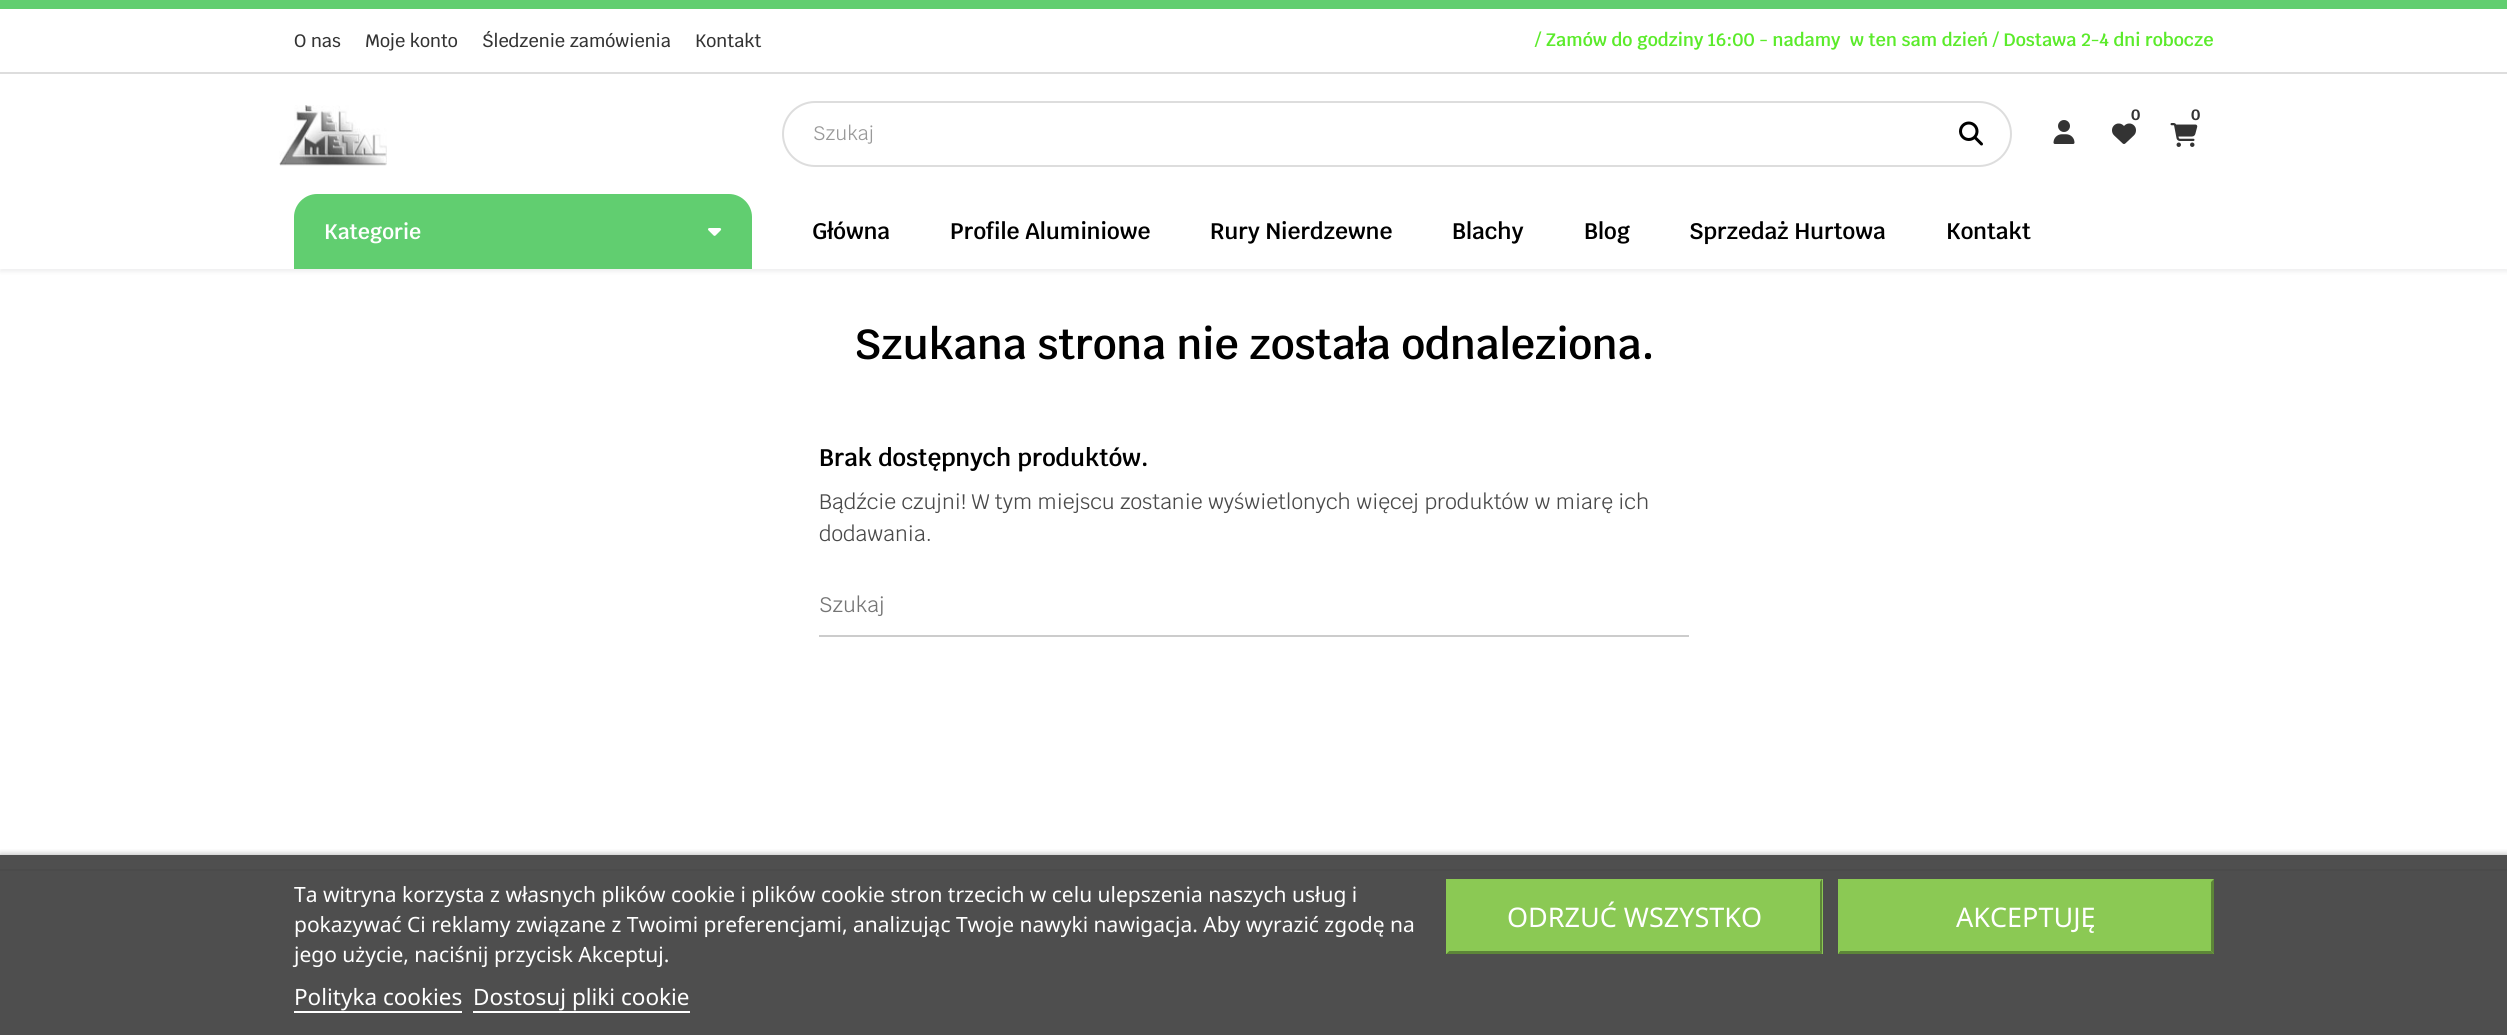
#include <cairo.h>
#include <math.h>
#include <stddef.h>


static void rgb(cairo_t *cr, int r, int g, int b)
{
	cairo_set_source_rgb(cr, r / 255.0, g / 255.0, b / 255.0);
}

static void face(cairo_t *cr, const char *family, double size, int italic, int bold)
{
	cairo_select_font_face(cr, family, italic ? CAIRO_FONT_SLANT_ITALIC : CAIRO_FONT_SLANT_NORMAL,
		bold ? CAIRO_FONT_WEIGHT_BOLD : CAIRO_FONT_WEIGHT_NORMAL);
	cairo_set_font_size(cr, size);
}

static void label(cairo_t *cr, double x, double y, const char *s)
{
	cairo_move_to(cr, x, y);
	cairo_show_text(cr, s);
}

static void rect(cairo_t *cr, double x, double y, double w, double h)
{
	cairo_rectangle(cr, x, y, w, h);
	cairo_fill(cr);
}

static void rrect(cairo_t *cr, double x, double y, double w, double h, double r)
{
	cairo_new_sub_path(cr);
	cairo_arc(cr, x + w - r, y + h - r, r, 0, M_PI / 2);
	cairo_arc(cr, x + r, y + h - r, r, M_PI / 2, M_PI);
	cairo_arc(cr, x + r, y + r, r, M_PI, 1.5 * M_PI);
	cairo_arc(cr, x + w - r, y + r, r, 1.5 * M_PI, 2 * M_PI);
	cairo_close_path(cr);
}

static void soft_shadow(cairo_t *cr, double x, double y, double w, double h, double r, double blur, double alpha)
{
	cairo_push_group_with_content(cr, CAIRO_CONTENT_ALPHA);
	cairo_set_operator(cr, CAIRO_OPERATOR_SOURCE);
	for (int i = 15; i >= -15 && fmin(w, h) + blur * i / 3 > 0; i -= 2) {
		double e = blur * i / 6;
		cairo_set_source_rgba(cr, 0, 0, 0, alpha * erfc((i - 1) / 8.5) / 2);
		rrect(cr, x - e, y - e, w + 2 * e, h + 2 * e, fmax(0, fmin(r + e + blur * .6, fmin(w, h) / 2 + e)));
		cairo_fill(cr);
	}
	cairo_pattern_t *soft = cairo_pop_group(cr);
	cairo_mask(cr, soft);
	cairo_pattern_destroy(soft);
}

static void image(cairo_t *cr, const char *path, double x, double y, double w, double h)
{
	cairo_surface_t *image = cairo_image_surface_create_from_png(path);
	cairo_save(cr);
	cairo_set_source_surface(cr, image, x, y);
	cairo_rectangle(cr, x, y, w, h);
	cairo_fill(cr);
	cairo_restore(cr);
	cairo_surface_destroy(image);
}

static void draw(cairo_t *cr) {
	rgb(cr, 255, 255, 255);
	cairo_paint(cr);
	rgb(cr, 79, 79, 79);
	rect(cr, 0, 855, 2507, 14);
	rgb(cr, 97, 206, 112);
	rect(cr, 0, 0, 2507, 9);
	face(cr, "Krub Medium", 18, 0, 0);
	rgb(cr, 51, 51, 51);
	label(cr, 294, 47, "O nas");
	label(cr, 365, 47, "Moje konto");
	label(cr, 482, 47, "Śledzenie zamówienia");
	label(cr, 695, 47, "Kontakt");
	face(cr, "Krub SemiBold", 18, 0, 0);
	rgb(cr, 91, 235, 43);
	label(cr, 1535, 46, "/ Zamów do godziny 16:00 - nadamy  w ten sam dzień / Dostawa 2-4 dni robocze");
	rgb(cr, 221, 221, 221);
	rect(cr, 0, 72, 2507, 2);
	image(cr, "image0.png", 279, 105, 108, 61);
	face(cr, "Krub", 15, 0, 1);
	rgb(cr, 51, 51, 51);
	label(cr, 2131, 120, "0");
	image(cr, "image1.png", 2112, 123, 24, 21);
	label(cr, 2191, 120, "0");
	image(cr, "image2.png", 2170, 123, 28, 24);
	rrect(cr, 783, 102, 1228, 64, 32);
	rgb(cr, 221, 221, 221);
	cairo_stroke(cr);
	face(cr, "Krub", 19.5, 0, 0);
	rgb(cr, 153, 153, 153);
	label(cr, 813, 140, "Szukaj");
	image(cr, "image3.png", 1959, 121, 24, 25);
	image(cr, "image4.png", 2053, 120, 22, 24);
	cairo_save(cr);
	cairo_set_fill_rule(cr, CAIRO_FILL_RULE_EVEN_ODD);
	cairo_new_path(cr);
	cairo_move_to(cr, 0, 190);
	cairo_line_to(cr, 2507, 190);
	cairo_line_to(cr, 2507, 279);
	cairo_line_to(cr, 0, 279);
	cairo_close_path(cr);
	cairo_move_to(cr, 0, 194);
	cairo_line_to(cr, 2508, 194);
	cairo_line_to(cr, 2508, 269);
	cairo_line_to(cr, 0, 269);
	cairo_close_path(cr);
	cairo_clip(cr);
	rgb(cr, 33, 37, 41);
	soft_shadow(cr, 0, 197, 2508, 75, 0, 2, 0.07);
	cairo_restore(cr);
	rgb(cr, 97, 206, 112);
	cairo_new_path(cr);
	cairo_move_to(cr, 317, 194);
	cairo_line_to(cr, 729, 194);
	cairo_curve_to(cr, 741.5, 194, 752, 204.5, 752, 217);
	cairo_line_to(cr, 752, 269);
	cairo_line_to(cr, 294, 269);
	cairo_line_to(cr, 294, 217);
	cairo_curve_to(cr, 294, 204.5, 304.5, 194, 317, 194);
	cairo_close_path(cr);
	cairo_fill(cr);
	face(cr, "Krub SemiBold", 21, 0, 0);
	rgb(cr, 255, 255, 255);
	label(cr, 324, 239, "Kategorie");
	image(cr, "image5.png", 708, 228, 14, 8);
	face(cr, "Krub SemiBold", 22.5, 0, 0);
	rgb(cr, 0, 0, 0);
	label(cr, 812, 239, "Główna");
	label(cr, 950, 239, "Profile Aluminiowe");
	label(cr, 1210, 239, "Rury Nierdzewne");
	label(cr, 1452, 239, "Blachy");
	label(cr, 1584, 239, "Blog");
	label(cr, 1689, 239, "Sprzedaż Hurtowa");
	label(cr, 1946, 239, "Kontakt");
	face(cr, "Krub SemiBold", 42, 0, 0);
	label(cr, 854, 359, "Szukana strona nie została odnaleziona.");
	face(cr, "Krub SemiBold", 24, 0, 0);
	label(cr, 819, 466, "Brak dostępnych produktów.");
	face(cr, "Krub", 21, 0, 0);
	rgb(cr, 73, 73, 73);
	label(cr, 819, 509, "Bądźcie czujni! W tym miejscu zostanie wyświetlonych więcej produktów w miarę ich");
	label(cr, 819, 541, "dodawania.");
	rgb(cr, 204, 204, 204);
	rect(cr, 819, 635, 870, 2);
	rgb(cr, 117, 117, 117);
	label(cr, 819, 612, "Szukaj");
	rgb(cr, 78, 78, 78);
	rect(cr, 0, 871, 2507, 164);
	rgb(cr, 75, 75, 75);
	rect(cr, 0, 869, 2507, 2);
	cairo_save(cr);
	cairo_rectangle(cr, 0, 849, 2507, 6);
	cairo_clip(cr);
	rgb(cr, 112, 112, 112);
	soft_shadow(cr, 0, 857, 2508, 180, 0, 4, 1);
	cairo_restore(cr);
	face(cr, "Noto Sans", 21, 0, 0);
	rgb(cr, 255, 255, 255);
	label(cr, 294, 902, "Ta witryna korzysta z własnych plików cookie i plików cookie stron trzecich w celu ulepszenia naszych usług i");
	label(cr, 294, 932, "pokazywać Ci reklamy związane z Twoimi preferencjami, analizując Twoje nawyki nawigacja. Aby wyrazić zgodę na");
	label(cr, 294, 962, "jego użycie, naciśnij przycisk Akceptuj.");
	face(cr, "Noto Sans", 22.5, 0, 0);
	label(cr, 294, 1005, "Polityka cookies");
	rect(cr, 294, 1011, 168, 2);
	label(cr, 473, 1005, "Dostosuj pliki cookie");
	rect(cr, 473, 1011, 217, 2);
	rgb(cr, 139, 201, 84);
	rect(cr, 1446, 879, 377, 75);
	rgb(cr, 93, 134, 56);
	cairo_new_path(cr);
	cairo_move_to(cr, 1822, 879);
	cairo_line_to(cr, 1822, 954);
	cairo_line_to(cr, 1820, 951);
	cairo_line_to(cr, 1820, 882);
	cairo_close_path(cr);
	cairo_fill(cr);
	cairo_new_path(cr);
	cairo_move_to(cr, 1822, 954);
	cairo_line_to(cr, 1446, 954);
	cairo_line_to(cr, 1449, 951);
	cairo_line_to(cr, 1820, 951);
	cairo_close_path(cr);
	cairo_fill(cr);
	rgb(cr, 139, 201, 84);
	cairo_new_path(cr);
	cairo_move_to(cr, 1446, 954);
	cairo_line_to(cr, 1446, 879);
	cairo_line_to(cr, 1449, 882);
	cairo_line_to(cr, 1449, 951);
	cairo_close_path(cr);
	cairo_fill(cr);
	face(cr, "Noto Sans", 27, 0, 0);
	rgb(cr, 255, 255, 255);
	label(cr, 1507, 927, "ODRZUĆ WSZYSTKO");
	rgb(cr, 139, 201, 84);
	rect(cr, 1838, 879, 376, 75);
	rgb(cr, 93, 134, 56);
	cairo_new_path(cr);
	cairo_move_to(cr, 2214, 879);
	cairo_line_to(cr, 2214, 954);
	cairo_line_to(cr, 2211, 951);
	cairo_line_to(cr, 2211, 882);
	cairo_close_path(cr);
	cairo_fill(cr);
	cairo_new_path(cr);
	cairo_move_to(cr, 2214, 954);
	cairo_line_to(cr, 1838, 954);
	cairo_line_to(cr, 1840, 951);
	cairo_line_to(cr, 2211, 951);
	cairo_close_path(cr);
	cairo_fill(cr);
	rgb(cr, 139, 201, 84);
	cairo_new_path(cr);
	cairo_move_to(cr, 1838, 954);
	cairo_line_to(cr, 1838, 879);
	cairo_line_to(cr, 1840, 882);
	cairo_line_to(cr, 1840, 951);
	cairo_close_path(cr);
	cairo_fill(cr);
	rgb(cr, 255, 255, 255);
	label(cr, 1956, 927, "AKCEPTUJĘ");
}

int main(void) {
	cairo_surface_t *surface = cairo_image_surface_create(CAIRO_FORMAT_RGB24, 2507, 1035);
	cairo_t *cr = cairo_create(surface);
	cairo_font_options_t *options = cairo_font_options_create();
	cairo_font_options_set_hint_metrics(options, CAIRO_HINT_METRICS_OFF);
	cairo_font_options_set_hint_style(options, CAIRO_HINT_STYLE_NONE);
	cairo_set_font_options(cr, options);
	cairo_set_miter_limit(cr, 4);
	draw(cr);
	cairo_surface_write_to_png(surface, "render.png");
	cairo_font_options_destroy(options);
	cairo_destroy(cr);
	cairo_surface_destroy(surface);
	return 0;
}
